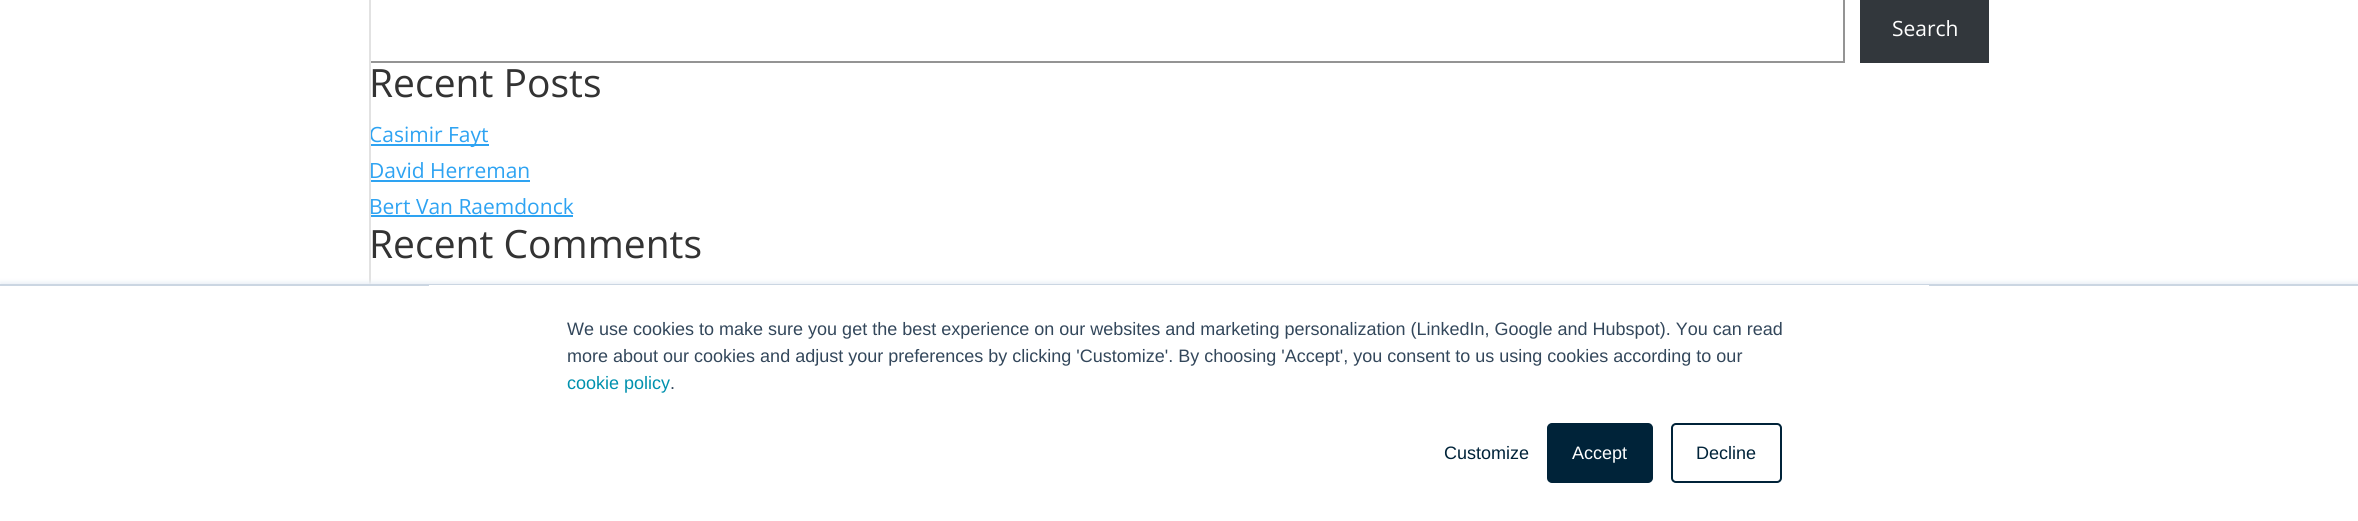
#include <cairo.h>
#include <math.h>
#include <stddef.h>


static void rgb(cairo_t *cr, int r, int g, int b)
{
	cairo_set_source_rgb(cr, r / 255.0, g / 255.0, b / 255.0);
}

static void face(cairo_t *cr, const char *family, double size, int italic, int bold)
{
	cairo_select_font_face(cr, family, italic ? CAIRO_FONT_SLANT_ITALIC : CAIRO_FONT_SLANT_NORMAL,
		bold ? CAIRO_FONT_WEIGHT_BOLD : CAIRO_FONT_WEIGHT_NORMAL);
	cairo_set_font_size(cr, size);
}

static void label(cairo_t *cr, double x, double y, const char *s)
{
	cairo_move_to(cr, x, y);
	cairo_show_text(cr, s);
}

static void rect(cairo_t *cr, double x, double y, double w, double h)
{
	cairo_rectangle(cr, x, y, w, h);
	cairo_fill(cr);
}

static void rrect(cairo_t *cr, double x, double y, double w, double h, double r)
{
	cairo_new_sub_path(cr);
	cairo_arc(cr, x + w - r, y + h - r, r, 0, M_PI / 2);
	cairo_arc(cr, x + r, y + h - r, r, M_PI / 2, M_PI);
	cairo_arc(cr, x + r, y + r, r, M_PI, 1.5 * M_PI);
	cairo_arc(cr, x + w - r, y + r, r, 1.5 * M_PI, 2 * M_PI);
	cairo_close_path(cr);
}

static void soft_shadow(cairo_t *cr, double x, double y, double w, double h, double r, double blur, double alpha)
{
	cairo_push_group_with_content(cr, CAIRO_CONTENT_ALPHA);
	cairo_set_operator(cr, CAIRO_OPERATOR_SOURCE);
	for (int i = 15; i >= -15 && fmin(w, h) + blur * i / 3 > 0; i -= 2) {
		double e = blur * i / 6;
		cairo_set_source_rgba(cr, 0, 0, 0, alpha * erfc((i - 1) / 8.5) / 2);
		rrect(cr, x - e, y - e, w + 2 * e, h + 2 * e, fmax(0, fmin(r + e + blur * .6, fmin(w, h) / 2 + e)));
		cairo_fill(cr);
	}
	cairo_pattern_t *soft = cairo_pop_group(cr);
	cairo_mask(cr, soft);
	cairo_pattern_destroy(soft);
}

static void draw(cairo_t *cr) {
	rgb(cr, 255, 255, 255);
	cairo_paint(cr);
	cairo_rectangle(cr, 370, -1, 1474, 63);
	rgb(cr, 148, 148, 148);
	cairo_stroke(cr);
	rgb(cr, 46, 163, 242);
	rect(cr, 369, 144, 120, 2);
	face(cr, "Open Sans", 21, 0, 0);
	label(cr, 369, 142, "Casimir Fayt");
	rect(cr, 369, 180, 161, 2);
	rect(cr, 369, 215, 204, 2);
	rgb(cr, 226, 226, 226);
	rect(cr, 369, 0, 2, 284);
	rgb(cr, 50, 55, 60);
	rect(cr, 1860, 0, 129, 63);
	rgb(cr, 255, 255, 255);
	label(cr, 1892, 36, "Search");
	face(cr, "Open Sans", 39, 0, 0);
	rgb(cr, 51, 51, 51);
	label(cr, 369, 97, "Recent Posts");
	face(cr, "Open Sans", 21, 0, 0);
	rgb(cr, 46, 163, 242);
	label(cr, 369, 178, "David Herreman");
	label(cr, 369, 214, "Bert Van Raemdonck");
	face(cr, "Open Sans", 39, 0, 0);
	rgb(cr, 51, 51, 51);
	label(cr, 369, 258, "Recent Comments");
	rgb(cr, 234, 240, 246);
	soft_shadow(cr, 0, 282, 2358, 239, 0, 2, 1);
	rgb(cr, 255, 255, 255);
	rect(cr, 0, 286, 2358, 235);
	rgb(cr, 203, 214, 226);
	rect(cr, 0, 284, 2358, 2);
	rgb(cr, 255, 255, 255);
	rect(cr, 429, 285, 1500, 1);
	face(cr, "Liberation Sans", 18, 0, 0);
	rgb(cr, 51, 71, 91);
	label(cr, 567, 335, "We use cookies to make sure you get the best experience on our websites and marketing personalization (LinkedIn, Google and Hubspot). You can read");
	label(cr, 567, 362, "more about our cookies and adjust your preferences by clicking 'Customize'. By choosing 'Accept', you consent to us using cookies according to our");
	rgb(cr, 0, 145, 174);
	label(cr, 567, 389, "cookie policy");
	rgb(cr, 51, 71, 91);
	label(cr, 670, 389, ".");
	rgb(cr, 0, 35, 57);
	label(cr, 1444, 459, "Customize");
	rrect(cr, 1548, 424, 104, 58, 4);
	cairo_fill_preserve(cr);
	cairo_stroke(cr);
	rgb(cr, 255, 255, 255);
	label(cr, 1572, 459, "Accept");
	rrect(cr, 1672, 424, 109, 58, 4);
	rgb(cr, 0, 35, 57);
	cairo_stroke(cr);
	label(cr, 1696, 459, "Decline");
}

int main(void) {
	cairo_surface_t *surface = cairo_image_surface_create(CAIRO_FORMAT_RGB24, 2358, 521);
	cairo_t *cr = cairo_create(surface);
	cairo_font_options_t *options = cairo_font_options_create();
	cairo_font_options_set_hint_metrics(options, CAIRO_HINT_METRICS_OFF);
	cairo_font_options_set_hint_style(options, CAIRO_HINT_STYLE_NONE);
	cairo_set_font_options(cr, options);
	cairo_set_miter_limit(cr, 4);
	draw(cr);
	cairo_surface_write_to_png(surface, "render.png");
	cairo_font_options_destroy(options);
	cairo_destroy(cr);
	cairo_surface_destroy(surface);
	return 0;
}
